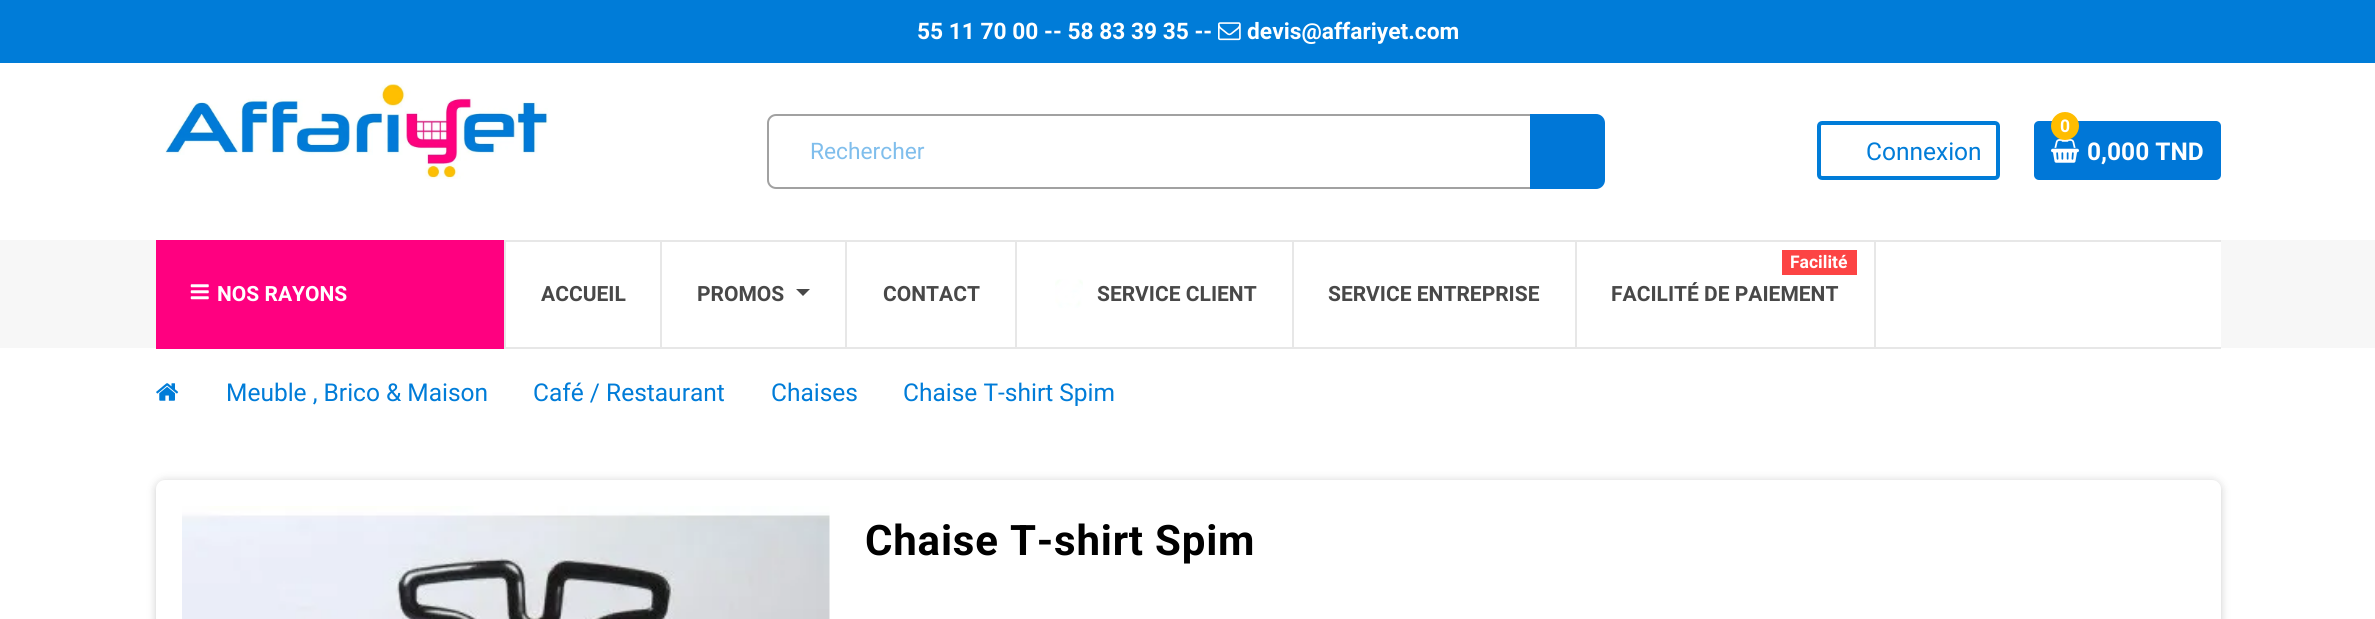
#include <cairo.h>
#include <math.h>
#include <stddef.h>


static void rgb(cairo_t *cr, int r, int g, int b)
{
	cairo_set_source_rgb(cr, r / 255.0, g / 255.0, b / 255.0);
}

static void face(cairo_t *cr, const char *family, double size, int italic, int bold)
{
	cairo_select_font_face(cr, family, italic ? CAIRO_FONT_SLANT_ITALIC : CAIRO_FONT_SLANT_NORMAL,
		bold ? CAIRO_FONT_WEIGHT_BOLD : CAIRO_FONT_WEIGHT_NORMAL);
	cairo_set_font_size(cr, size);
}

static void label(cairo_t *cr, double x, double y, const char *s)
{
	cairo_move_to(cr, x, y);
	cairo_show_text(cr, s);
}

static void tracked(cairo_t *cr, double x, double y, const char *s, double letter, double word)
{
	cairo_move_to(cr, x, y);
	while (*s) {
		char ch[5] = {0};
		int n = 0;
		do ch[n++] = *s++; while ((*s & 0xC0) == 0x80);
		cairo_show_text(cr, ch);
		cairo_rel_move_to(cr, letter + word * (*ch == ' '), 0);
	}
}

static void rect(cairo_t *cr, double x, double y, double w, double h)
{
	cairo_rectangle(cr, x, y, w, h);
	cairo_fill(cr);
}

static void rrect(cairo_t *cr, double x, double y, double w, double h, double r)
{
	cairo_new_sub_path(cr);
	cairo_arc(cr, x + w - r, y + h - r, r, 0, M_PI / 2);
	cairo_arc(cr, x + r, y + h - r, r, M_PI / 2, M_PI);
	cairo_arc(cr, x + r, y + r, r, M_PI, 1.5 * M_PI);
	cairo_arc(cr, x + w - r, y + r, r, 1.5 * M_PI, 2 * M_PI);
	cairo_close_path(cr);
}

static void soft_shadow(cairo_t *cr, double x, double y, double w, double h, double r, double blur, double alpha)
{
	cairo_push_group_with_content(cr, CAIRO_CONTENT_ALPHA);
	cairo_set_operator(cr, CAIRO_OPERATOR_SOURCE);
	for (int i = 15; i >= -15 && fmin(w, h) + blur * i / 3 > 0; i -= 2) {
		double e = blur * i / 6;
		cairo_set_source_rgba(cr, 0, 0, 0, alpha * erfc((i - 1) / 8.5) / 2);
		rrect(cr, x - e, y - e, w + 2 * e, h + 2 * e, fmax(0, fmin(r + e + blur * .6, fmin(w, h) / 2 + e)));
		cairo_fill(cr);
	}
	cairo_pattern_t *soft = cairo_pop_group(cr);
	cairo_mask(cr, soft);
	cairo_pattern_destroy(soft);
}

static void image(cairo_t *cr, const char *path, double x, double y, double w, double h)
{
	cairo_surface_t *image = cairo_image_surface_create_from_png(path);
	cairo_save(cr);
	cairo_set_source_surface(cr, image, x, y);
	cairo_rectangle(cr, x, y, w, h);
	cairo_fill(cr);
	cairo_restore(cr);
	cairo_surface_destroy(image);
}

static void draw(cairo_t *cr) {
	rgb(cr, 255, 255, 255);
	cairo_paint(cr);
	rgb(cr, 0, 124, 216);
	rect(cr, 0, 0, 2375, 63);
	face(cr, "Roboto", 22.75, 0, 1);
	rgb(cr, 255, 255, 255);
	label(cr, 917, 39, "55 11 70 00 -- 58 83 39 35 --");
	image(cr, "image0.png", 1218, 22, 23, 19);
	label(cr, 1247, 39, "devis@affariyet.com");
	image(cr, "image1.png", 165, 84, 383, 95);
	rrect(cr, 768, 115, 834, 73, 8);
	rgb(cr, 161, 161, 161);
	cairo_stroke(cr);
	face(cr, "Roboto", 22.75, 0, 0);
	rgb(cr, 128, 190, 236);
	label(cr, 810, 159, "Rechercher");
	rgb(cr, 0, 119, 215);
	cairo_new_path(cr);
	cairo_move_to(cr, 1530, 114);
	cairo_line_to(cr, 1596, 114);
	cairo_curve_to(cr, 1601, 114, 1605, 118, 1605, 123);
	cairo_line_to(cr, 1605, 180);
	cairo_curve_to(cr, 1605, 185, 1601, 189, 1596, 189);
	cairo_line_to(cr, 1530, 189);
	cairo_close_path(cr);
	cairo_fill(cr);
	rrect(cr, 1819, 123, 179, 55, 3);
	rgb(cr, 0, 124, 216);
	cairo_set_line_width(cr, 4);
	cairo_stroke(cr);
	face(cr, "Roboto", 24.5, 0, 0);
	label(cr, 1866, 160, "Connexion");
	rgb(cr, 0, 119, 215);
	rrect(cr, 2034, 121, 187, 59, 5);
	cairo_fill(cr);
	image(cr, "image2.png", 2051, 139, 28, 24);
	rgb(cr, 255, 189, 0);
	cairo_arc(cr, 2065, 126, 14, 0, 2 * M_PI);
	cairo_fill(cr);
	face(cr, "Roboto", 17.5, 0, 1);
	rgb(cr, 255, 255, 255);
	label(cr, 2060, 132, "0");
	face(cr, "Roboto", 24.5, 0, 1);
	label(cr, 2087, 160, "0,000 TND");
	rgb(cr, 247, 247, 247);
	rect(cr, 0, 240, 2375, 108);
	rgb(cr, 231, 231, 231);
	rect(cr, 504, 240, 1717, 2);
	rect(cr, 504, 347, 1717, 2);
	rgb(cr, 255, 255, 255);
	rect(cr, 506, 242, 1715, 105);
	rgb(cr, 231, 231, 231);
	rect(cr, 504, 242, 2, 105);
	rgb(cr, 255, 0, 128);
	rect(cr, 156, 240, 348, 109);
	image(cr, "image3.png", 190, 284, 19, 16);
	face(cr, "Roboto", 21, 0, 1);
	rgb(cr, 255, 255, 255);
	label(cr, 217, 301, "NOS RAYONS");
	rgb(cr, 231, 231, 231);
	rect(cr, 660, 242, 2, 105);
	rgb(cr, 72, 72, 72);
	label(cr, 541, 301, "ACCUEIL");
	rgb(cr, 231, 231, 231);
	rect(cr, 845, 242, 2, 105);
	rgb(cr, 72, 72, 72);
	label(cr, 697, 301, "PROMOS");
	cairo_new_path(cr);
	cairo_move_to(cr, 796, 289);
	cairo_line_to(cr, 810, 289);
	cairo_line_to(cr, 803, 296);
	cairo_close_path(cr);
	cairo_fill(cr);
	rgb(cr, 231, 231, 231);
	rect(cr, 1015, 242, 2, 105);
	rgb(cr, 72, 72, 72);
	label(cr, 883, 301, "CONTACT");
	rgb(cr, 231, 231, 231);
	rect(cr, 1292, 242, 2, 105);
	image(cr, "image4.png", 1055, 279, 28, 29);
	rgb(cr, 72, 72, 72);
	label(cr, 1097, 301, "SERVICE CLIENT");
	rgb(cr, 231, 231, 231);
	rect(cr, 1575, 242, 2, 105);
	rgb(cr, 72, 72, 72);
	label(cr, 1328, 301, "SERVICE ENTREPRISE");
	rgb(cr, 231, 231, 231);
	rect(cr, 1874, 242, 2, 105);
	rgb(cr, 252, 68, 68);
	rect(cr, 1782, 250, 75, 25);
	face(cr, "Roboto", 17.5, 0, 1);
	rgb(cr, 255, 255, 255);
	label(cr, 1790, 268, "Facilité");
	face(cr, "Roboto", 21, 0, 1);
	rgb(cr, 72, 72, 72);
	label(cr, 1611, 301, "FACILITÉ DE PAIEMENT");
	image(cr, "image5.png", 156, 383, 23, 18);
	face(cr, "Roboto", 24.5, 0, 0);
	rgb(cr, 0, 124, 216);
	label(cr, 226, 401, "Meuble , Brico & Maison");
	label(cr, 533, 401, "Café / Restaurant");
	label(cr, 771, 401, "Chaises");
	label(cr, 903, 401, "Chaise T-shirt Spim");
	rgb(cr, 0, 0, 0);
	soft_shadow(cr, 156, 481, 2065, 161, 9, 4.5, 0.2);
	rgb(cr, 255, 255, 255);
	rrect(cr, 156, 480, 2065, 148, 9);
	cairo_fill(cr);
	image(cr, "image6.png", 182, 506, 648, 113);
	face(cr, "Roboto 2", 42, 0, 1);
	rgb(cr, 0, 0, 0);
	tracked(cr, 865, 555, "Chaise T-shirt Spim", 0.8, 0);
}

int main(void) {
	cairo_surface_t *surface = cairo_image_surface_create(CAIRO_FORMAT_RGB24, 2375, 619);
	cairo_t *cr = cairo_create(surface);
	cairo_font_options_t *options = cairo_font_options_create();
	cairo_font_options_set_hint_metrics(options, CAIRO_HINT_METRICS_OFF);
	cairo_font_options_set_hint_style(options, CAIRO_HINT_STYLE_NONE);
	cairo_set_font_options(cr, options);
	cairo_set_miter_limit(cr, 4);
	draw(cr);
	cairo_surface_write_to_png(surface, "render.png");
	cairo_font_options_destroy(options);
	cairo_destroy(cr);
	cairo_surface_destroy(surface);
	return 0;
}
